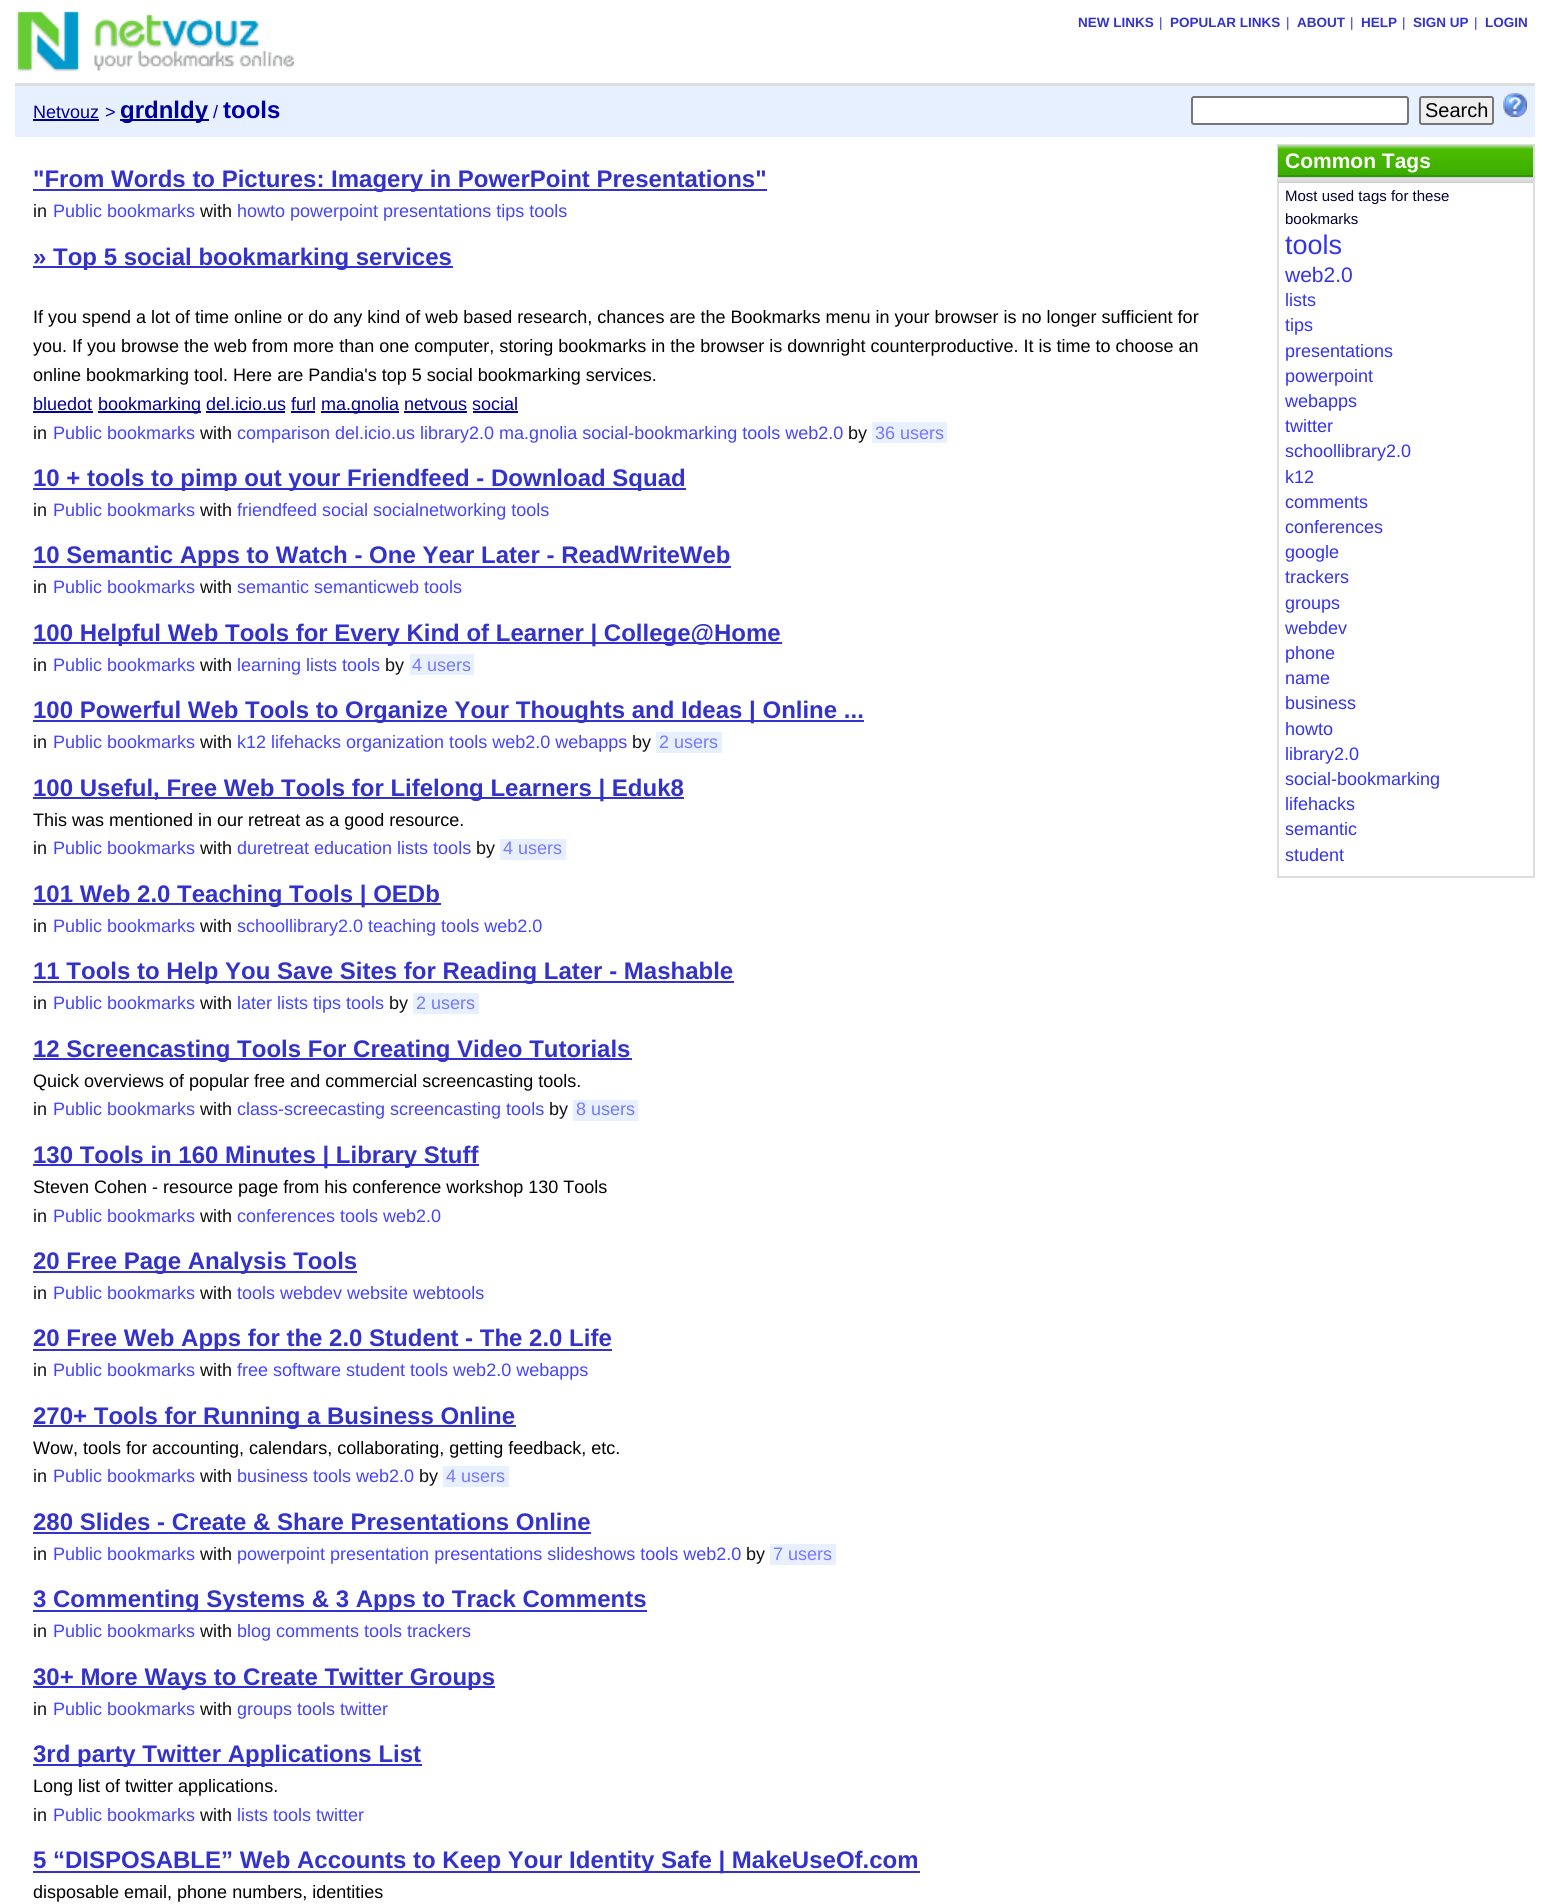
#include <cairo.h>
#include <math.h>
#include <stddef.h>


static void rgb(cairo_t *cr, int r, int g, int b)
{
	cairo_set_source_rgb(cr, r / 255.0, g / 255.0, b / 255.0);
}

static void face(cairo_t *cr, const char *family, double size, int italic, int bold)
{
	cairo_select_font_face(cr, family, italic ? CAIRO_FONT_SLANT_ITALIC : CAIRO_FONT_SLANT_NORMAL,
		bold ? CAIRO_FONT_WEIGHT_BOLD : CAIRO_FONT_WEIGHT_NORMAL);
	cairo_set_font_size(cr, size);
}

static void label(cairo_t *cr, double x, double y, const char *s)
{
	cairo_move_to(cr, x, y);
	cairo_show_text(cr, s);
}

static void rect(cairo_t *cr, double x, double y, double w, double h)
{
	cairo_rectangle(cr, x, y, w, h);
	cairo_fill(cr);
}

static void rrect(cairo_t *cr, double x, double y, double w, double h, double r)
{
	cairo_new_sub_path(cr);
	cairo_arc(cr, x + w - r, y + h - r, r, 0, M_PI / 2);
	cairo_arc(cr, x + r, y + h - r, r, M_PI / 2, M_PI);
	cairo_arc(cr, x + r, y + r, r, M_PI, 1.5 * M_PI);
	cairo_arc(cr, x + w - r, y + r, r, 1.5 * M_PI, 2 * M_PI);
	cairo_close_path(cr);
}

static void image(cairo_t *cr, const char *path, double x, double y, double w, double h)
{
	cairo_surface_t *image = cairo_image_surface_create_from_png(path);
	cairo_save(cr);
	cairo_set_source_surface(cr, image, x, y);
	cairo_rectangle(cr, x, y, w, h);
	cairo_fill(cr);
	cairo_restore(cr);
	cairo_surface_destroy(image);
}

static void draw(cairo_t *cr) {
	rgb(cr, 255, 255, 255);
	cairo_paint(cr);
	rgb(cr, 221, 221, 221);
	rect(cr, 15, 83, 1520, 3);
	image(cr, "image0.png", 16, 11, 279, 61);
	face(cr, "Liberation Sans", 13.5, 0, 1);
	rgb(cr, 51, 51, 204);
	label(cr, 1078, 27, "NEW LINKS");
	face(cr, "Liberation Sans", 13.5, 0, 0);
	label(cr, 1159, 27, "|");
	face(cr, "Liberation Sans", 13.5, 0, 1);
	label(cr, 1170, 27, "POPULAR LINKS");
	face(cr, "Liberation Sans", 13.5, 0, 0);
	label(cr, 1286, 27, "|");
	face(cr, "Liberation Sans", 13.5, 0, 1);
	label(cr, 1297, 27, "ABOUT");
	face(cr, "Liberation Sans", 13.5, 0, 0);
	label(cr, 1350, 27, "|");
	face(cr, "Liberation Sans", 13.5, 0, 1);
	label(cr, 1361, 27, "HELP");
	face(cr, "Liberation Sans", 13.5, 0, 0);
	label(cr, 1402, 27, "|");
	face(cr, "Liberation Sans", 13.5, 0, 1);
	label(cr, 1413, 27, "SIGN UP");
	face(cr, "Liberation Sans", 13.5, 0, 0);
	label(cr, 1474, 27, "|");
	face(cr, "Liberation Sans", 13.5, 0, 1);
	label(cr, 1485, 27, "LOGIN");
	rgb(cr, 230, 240, 255);
	rect(cr, 15, 86, 1520, 51);
	face(cr, "Liberation Sans", 18, 0, 0);
	rgb(cr, 0, 0, 153);
	label(cr, 33, 118, "Netvouz");
	rect(cr, 33, 119, 66, 2);
	rgb(cr, 0, 0, 170);
	label(cr, 105, 118, ">");
	rgb(cr, 0, 0, 153);
	rect(cr, 120, 119, 89, 2);
	face(cr, "Liberation Sans", 24, 0, 1);
	label(cr, 120, 118, "grdnldy");
	face(cr, "Liberation Sans", 18, 0, 0);
	rgb(cr, 0, 0, 170);
	label(cr, 213, 118, "/");
	face(cr, "Liberation Sans", 24, 0, 1);
	label(cr, 223, 118, "tools");
	rgb(cr, 255, 255, 255);
	rrect(cr, 1192, 97, 216, 27, 2);
	cairo_fill_preserve(cr);
	rgb(cr, 118, 118, 118);
	cairo_stroke(cr);
	rgb(cr, 239, 239, 239);
	rrect(cr, 1420, 97, 73, 27, 2);
	cairo_fill_preserve(cr);
	rgb(cr, 118, 118, 118);
	cairo_stroke(cr);
	face(cr, "Liberation Sans", 20, 0, 0);
	rgb(cr, 0, 0, 0);
	label(cr, 1425, 117, "Search");
	image(cr, "image1.png", 1503, 93, 24, 24);
	rgb(cr, 51, 51, 204);
	rect(cr, 33, 189, 734, 2);
	face(cr, "Liberation Sans", 24, 0, 1);
	label(cr, 33, 187, "\"From Words to Pictures: Imagery in PowerPoint Presentations\"");
	face(cr, "Liberation Sans", 18, 0, 0);
	rgb(cr, 17, 17, 17);
	label(cr, 33, 217, "in");
	rgb(cr, 68, 68, 255);
	label(cr, 53, 217, "Public bookmarks");
	rgb(cr, 17, 17, 17);
	label(cr, 200, 217, "with");
	rgb(cr, 68, 68, 255);
	label(cr, 237, 217, "howto powerpoint presentations tips tools");
	rgb(cr, 51, 51, 204);
	rect(cr, 33, 266, 420, 2);
	face(cr, "Liberation Sans", 24, 0, 1);
	label(cr, 33, 265, "» Top 5 social bookmarking services");
	face(cr, "Liberation Sans", 18, 0, 0);
	rgb(cr, 0, 0, 0);
	label(cr, 33, 323, "If you spend a lot of time online or do any kind of web based research, chances are the Bookmarks menu in your browser is no longer sufficient for");
	label(cr, 33, 352, "you. If you browse the web from more than one computer, storing bookmarks in the browser is downright counterproductive. It is time to choose an");
	label(cr, 33, 381, "online bookmarking tool. Here are Pandia's top 5 social bookmarking services.");
	rgb(cr, 0, 0, 153);
	label(cr, 33, 410, "bluedot");
	rect(cr, 33, 411, 60, 2);
	rect(cr, 98, 411, 103, 2);
	label(cr, 98, 410, "bookmarking del.icio.us furl");
	rect(cr, 321, 411, 78, 2);
	label(cr, 321, 410, "ma.gnolia netvous social");
	rect(cr, 206, 411, 79, 2);
	rect(cr, 291, 411, 24, 2);
	rect(cr, 404, 411, 63, 2);
	rect(cr, 473, 411, 45, 2);
	rgb(cr, 17, 17, 17);
	label(cr, 33, 439, "in");
	rgb(cr, 68, 68, 255);
	label(cr, 53, 439, "Public bookmarks");
	rgb(cr, 17, 17, 17);
	label(cr, 200, 439, "with");
	rgb(cr, 68, 68, 255);
	label(cr, 237, 439, "comparison del.icio.us library2.0 ma.gnolia social-bookmarking tools web2.0");
	rgb(cr, 17, 17, 17);
	label(cr, 848, 439, "by");
	rgb(cr, 230, 240, 255);
	rect(cr, 872, 422, 75, 21);
	rgb(cr, 119, 119, 255);
	label(cr, 875, 439, "36 users");
	rgb(cr, 51, 51, 204);
	rect(cr, 33, 488, 653, 2);
	face(cr, "Liberation Sans", 24, 0, 1);
	label(cr, 33, 486, "10 + tools to pimp out your Friendfeed - Download Squad");
	face(cr, "Liberation Sans", 18, 0, 0);
	rgb(cr, 17, 17, 17);
	label(cr, 33, 516, "in");
	rgb(cr, 68, 68, 255);
	label(cr, 53, 516, "Public bookmarks");
	rgb(cr, 17, 17, 17);
	label(cr, 200, 516, "with");
	rgb(cr, 68, 68, 255);
	label(cr, 237, 516, "friendfeed social socialnetworking tools");
	rgb(cr, 51, 51, 204);
	rect(cr, 33, 566, 698, 2);
	face(cr, "Liberation Sans", 24, 0, 1);
	label(cr, 33, 563, "10 Semantic Apps to Watch - One Year Later - ReadWriteWeb");
	face(cr, "Liberation Sans", 18, 0, 0);
	rgb(cr, 17, 17, 17);
	label(cr, 33, 593, "in");
	rgb(cr, 68, 68, 255);
	label(cr, 53, 593, "Public bookmarks");
	rgb(cr, 17, 17, 17);
	label(cr, 200, 593, "with");
	rgb(cr, 68, 68, 255);
	label(cr, 237, 593, "semantic semanticweb tools");
	rgb(cr, 51, 51, 204);
	rect(cr, 33, 642, 749, 2);
	face(cr, "Liberation Sans", 24, 0, 1);
	label(cr, 33, 641, "100 Helpful Web Tools for Every Kind of Learner | College@Home");
	face(cr, "Liberation Sans", 18, 0, 0);
	rgb(cr, 17, 17, 17);
	label(cr, 33, 671, "in");
	rgb(cr, 68, 68, 255);
	label(cr, 53, 671, "Public bookmarks");
	rgb(cr, 17, 17, 17);
	label(cr, 200, 671, "with");
	rgb(cr, 68, 68, 255);
	label(cr, 237, 671, "learning lists tools");
	rgb(cr, 17, 17, 17);
	label(cr, 385, 671, "by");
	rgb(cr, 230, 240, 255);
	rect(cr, 410, 654, 64, 21);
	rgb(cr, 119, 119, 255);
	label(cr, 412, 671, "4 users");
	rgb(cr, 51, 51, 204);
	rect(cr, 33, 720, 831, 2);
	face(cr, "Liberation Sans", 24, 0, 1);
	label(cr, 33, 718, "100 Powerful Web Tools to Organize Your Thoughts and Ideas | Online ...");
	face(cr, "Liberation Sans", 18, 0, 0);
	rgb(cr, 17, 17, 17);
	label(cr, 33, 748, "in");
	rgb(cr, 68, 68, 255);
	label(cr, 53, 748, "Public bookmarks");
	rgb(cr, 17, 17, 17);
	label(cr, 200, 748, "with");
	rgb(cr, 68, 68, 255);
	label(cr, 237, 748, "k12 lifehacks organization tools web2.0 webapps");
	rgb(cr, 17, 17, 17);
	label(cr, 632, 748, "by");
	rgb(cr, 230, 240, 255);
	rect(cr, 656, 732, 66, 21);
	rgb(cr, 119, 119, 255);
	label(cr, 659, 748, "2 users");
	rgb(cr, 51, 51, 204);
	rect(cr, 33, 797, 651, 2);
	face(cr, "Liberation Sans", 24, 0, 1);
	label(cr, 33, 796, "100 Useful, Free Web Tools for Lifelong Learners | Eduk8");
	face(cr, "Liberation Sans", 18, 0, 0);
	rgb(cr, 0, 0, 0);
	label(cr, 33, 826, "This was mentioned in our retreat as a good resource.");
	rgb(cr, 17, 17, 17);
	label(cr, 33, 854, "in");
	rgb(cr, 68, 68, 255);
	label(cr, 53, 854, "Public bookmarks");
	rgb(cr, 17, 17, 17);
	label(cr, 200, 854, "with");
	rgb(cr, 68, 68, 255);
	label(cr, 237, 854, "duretreat education lists tools");
	rgb(cr, 17, 17, 17);
	label(cr, 476, 854, "by");
	rgb(cr, 230, 240, 255);
	rect(cr, 500, 839, 66, 21);
	rgb(cr, 119, 119, 255);
	label(cr, 503, 854, "4 users");
	rgb(cr, 51, 51, 204);
	rect(cr, 33, 903, 408, 2);
	face(cr, "Liberation Sans", 24, 0, 1);
	label(cr, 33, 902, "101 Web 2.0 Teaching Tools | OEDb");
	face(cr, "Liberation Sans", 18, 0, 0);
	rgb(cr, 17, 17, 17);
	label(cr, 33, 932, "in");
	rgb(cr, 68, 68, 255);
	label(cr, 53, 932, "Public bookmarks");
	rgb(cr, 17, 17, 17);
	label(cr, 200, 932, "with");
	rgb(cr, 68, 68, 255);
	label(cr, 237, 932, "schoollibrary2.0 teaching tools web2.0");
	rgb(cr, 51, 51, 204);
	rect(cr, 33, 981, 701, 2);
	face(cr, "Liberation Sans", 24, 0, 1);
	label(cr, 33, 979, "11 Tools to Help You Save Sites for Reading Later - Mashable");
	face(cr, "Liberation Sans", 18, 0, 0);
	rgb(cr, 17, 17, 17);
	label(cr, 33, 1009, "in");
	rgb(cr, 68, 68, 255);
	label(cr, 53, 1009, "Public bookmarks");
	rgb(cr, 17, 17, 17);
	label(cr, 200, 1009, "with");
	rgb(cr, 68, 68, 255);
	label(cr, 237, 1009, "later lists tips tools");
	rgb(cr, 17, 17, 17);
	label(cr, 389, 1009, "by");
	rgb(cr, 230, 240, 255);
	rect(cr, 413, 993, 66, 21);
	rgb(cr, 119, 119, 255);
	label(cr, 416, 1009, "2 users");
	rgb(cr, 51, 51, 204);
	rect(cr, 33, 1058, 599, 2);
	face(cr, "Liberation Sans", 24, 0, 1);
	label(cr, 33, 1057, "12 Screencasting Tools For Creating Video Tutorials");
	face(cr, "Liberation Sans", 18, 0, 0);
	rgb(cr, 0, 0, 0);
	label(cr, 33, 1087, "Quick overviews of popular free and commercial screencasting tools.");
	rgb(cr, 17, 17, 17);
	label(cr, 33, 1115, "in");
	rgb(cr, 68, 68, 255);
	label(cr, 53, 1115, "Public bookmarks");
	rgb(cr, 17, 17, 17);
	label(cr, 200, 1115, "with");
	rgb(cr, 68, 68, 255);
	label(cr, 237, 1115, "class-screecasting screencasting tools");
	rgb(cr, 17, 17, 17);
	label(cr, 549, 1115, "by");
	rgb(cr, 230, 240, 255);
	rect(cr, 573, 1100, 65, 21);
	rgb(cr, 119, 119, 255);
	label(cr, 576, 1115, "8 users");
	rgb(cr, 51, 51, 204);
	rect(cr, 33, 1164, 446, 2);
	face(cr, "Liberation Sans", 24, 0, 1);
	label(cr, 33, 1163, "130 Tools in 160 Minutes | Library Stuff");
	face(cr, "Liberation Sans", 18, 0, 0);
	rgb(cr, 0, 0, 0);
	label(cr, 33, 1193, "Steven Cohen - resource page from his conference workshop 130 Tools");
	rgb(cr, 17, 17, 17);
	label(cr, 33, 1222, "in");
	rgb(cr, 68, 68, 255);
	label(cr, 53, 1222, "Public bookmarks");
	rgb(cr, 17, 17, 17);
	label(cr, 200, 1222, "with");
	rgb(cr, 68, 68, 255);
	label(cr, 237, 1222, "conferences tools web2.0");
	rgb(cr, 51, 51, 204);
	rect(cr, 33, 1271, 324, 2);
	face(cr, "Liberation Sans", 24, 0, 1);
	label(cr, 33, 1269, "20 Free Page Analysis Tools");
	face(cr, "Liberation Sans", 18, 0, 0);
	rgb(cr, 17, 17, 17);
	label(cr, 33, 1299, "in");
	rgb(cr, 68, 68, 255);
	label(cr, 53, 1299, "Public bookmarks");
	rgb(cr, 17, 17, 17);
	label(cr, 200, 1299, "with");
	rgb(cr, 68, 68, 255);
	label(cr, 237, 1299, "tools webdev website webtools");
	rgb(cr, 51, 51, 204);
	rect(cr, 33, 1349, 579, 2);
	face(cr, "Liberation Sans", 24, 0, 1);
	label(cr, 33, 1346, "20 Free Web Apps for the 2.0 Student - The 2.0 Life");
	face(cr, "Liberation Sans", 18, 0, 0);
	rgb(cr, 17, 17, 17);
	label(cr, 33, 1376, "in");
	rgb(cr, 68, 68, 255);
	label(cr, 53, 1376, "Public bookmarks");
	rgb(cr, 17, 17, 17);
	label(cr, 200, 1376, "with");
	rgb(cr, 68, 68, 255);
	label(cr, 237, 1376, "free software student tools web2.0 webapps");
	rgb(cr, 51, 51, 204);
	rect(cr, 33, 1425, 483, 2);
	face(cr, "Liberation Sans", 24, 0, 1);
	label(cr, 33, 1424, "270+ Tools for Running a Business Online");
	face(cr, "Liberation Sans", 18, 0, 0);
	rgb(cr, 0, 0, 0);
	label(cr, 33, 1454, "Wow, tools for accounting, calendars, collaborating, getting feedback, etc.");
	rgb(cr, 17, 17, 17);
	label(cr, 33, 1482, "in");
	rgb(cr, 68, 68, 255);
	label(cr, 53, 1482, "Public bookmarks");
	rgb(cr, 17, 17, 17);
	label(cr, 200, 1482, "with");
	rgb(cr, 68, 68, 255);
	label(cr, 237, 1482, "business tools web2.0");
	rgb(cr, 17, 17, 17);
	label(cr, 419, 1482, "by");
	rgb(cr, 230, 240, 255);
	rect(cr, 443, 1466, 66, 21);
	rgb(cr, 119, 119, 255);
	label(cr, 446, 1482, "4 users");
	face(cr, "Liberation Sans", 24, 0, 1);
	rgb(cr, 51, 51, 204);
	label(cr, 33, 1530, "280 Slides - Create & Share Presentations Online");
	rect(cr, 33, 1532, 558, 2);
	face(cr, "Liberation Sans", 18, 0, 0);
	rgb(cr, 17, 17, 17);
	label(cr, 33, 1560, "in");
	rgb(cr, 68, 68, 255);
	label(cr, 53, 1560, "Public bookmarks");
	rgb(cr, 17, 17, 17);
	label(cr, 200, 1560, "with");
	rgb(cr, 68, 68, 255);
	label(cr, 237, 1560, "powerpoint presentation presentations slideshows tools web2.0");
	rgb(cr, 17, 17, 17);
	label(cr, 746, 1560, "by");
	rgb(cr, 230, 240, 255);
	rect(cr, 770, 1544, 66, 21);
	rgb(cr, 119, 119, 255);
	label(cr, 773, 1560, "7 users");
	rgb(cr, 51, 51, 204);
	rect(cr, 33, 1610, 614, 2);
	face(cr, "Liberation Sans", 24, 0, 1);
	label(cr, 33, 1607, "3 Commenting Systems & 3 Apps to Track Comments");
	face(cr, "Liberation Sans", 18, 0, 0);
	rgb(cr, 17, 17, 17);
	label(cr, 33, 1637, "in");
	rgb(cr, 68, 68, 255);
	label(cr, 53, 1637, "Public bookmarks");
	rgb(cr, 17, 17, 17);
	label(cr, 200, 1637, "with");
	rgb(cr, 68, 68, 255);
	label(cr, 237, 1637, "blog comments tools trackers");
	rgb(cr, 51, 51, 204);
	rect(cr, 33, 1686, 462, 2);
	face(cr, "Liberation Sans", 24, 0, 1);
	label(cr, 33, 1685, "30+ More Ways to Create Twitter Groups");
	face(cr, "Liberation Sans", 18, 0, 0);
	rgb(cr, 17, 17, 17);
	label(cr, 33, 1715, "in");
	rgb(cr, 68, 68, 255);
	label(cr, 53, 1715, "Public bookmarks");
	rgb(cr, 17, 17, 17);
	label(cr, 200, 1715, "with");
	rgb(cr, 68, 68, 255);
	label(cr, 237, 1715, "groups tools twitter");
	rgb(cr, 51, 51, 204);
	rect(cr, 33, 1764, 389, 2);
	face(cr, "Liberation Sans", 24, 0, 1);
	label(cr, 33, 1762, "3rd party Twitter Applications List");
	face(cr, "Liberation Sans", 18, 0, 0);
	rgb(cr, 0, 0, 0);
	label(cr, 33, 1792, "Long list of twitter applications.");
	rgb(cr, 17, 17, 17);
	label(cr, 33, 1821, "in");
	rgb(cr, 68, 68, 255);
	label(cr, 53, 1821, "Public bookmarks");
	rgb(cr, 17, 17, 17);
	label(cr, 200, 1821, "with");
	rgb(cr, 68, 68, 255);
	label(cr, 237, 1821, "lists tools twitter");
	rgb(cr, 51, 51, 204);
	rect(cr, 33, 1871, 887, 2);
	face(cr, "Liberation Sans", 24, 0, 1);
	label(cr, 33, 1868, "5 “DISPOSABLE” Web Accounts to Keep Your Identity Safe | MakeUseOf.com");
	face(cr, "Liberation Sans", 18, 0, 0);
	rgb(cr, 0, 0, 0);
	label(cr, 33, 1898, "disposable email, phone numbers, identities");
	cairo_rectangle(cr, 1278, 145, 256, 732);
	rgb(cr, 221, 221, 221);
	cairo_stroke(cr);
	image(cr, "image2.png", 1278, 145, 255, 38);
	face(cr, "Liberation Sans", 21, 0, 1);
	rgb(cr, 255, 255, 255);
	label(cr, 1285, 168, "Common Tags");
	face(cr, "Liberation Sans", 15, 0, 0);
	rgb(cr, 0, 0, 51);
	label(cr, 1285, 201, "Most used tags for these");
	label(cr, 1285, 224, "bookmarks");
	face(cr, "Liberation Sans", 27, 0, 0);
	rgb(cr, 51, 51, 238);
	label(cr, 1285, 254, "tools");
	face(cr, "Liberation Sans", 21, 0, 0);
	label(cr, 1285, 282, "web2.0");
	face(cr, "Liberation Sans", 18, 0, 0);
	label(cr, 1285, 306, "lists");
	label(cr, 1285, 331, "tips");
	label(cr, 1285, 357, "presentations");
	label(cr, 1285, 382, "powerpoint");
	label(cr, 1285, 407, "webapps");
	label(cr, 1285, 432, "twitter");
	label(cr, 1285, 457, "schoollibrary2.0");
	label(cr, 1285, 483, "k12");
	label(cr, 1285, 508, "comments");
	label(cr, 1285, 533, "conferences");
	label(cr, 1285, 558, "google");
	label(cr, 1285, 583, "trackers");
	label(cr, 1285, 609, "groups");
	label(cr, 1285, 634, "webdev");
	label(cr, 1285, 659, "phone");
	label(cr, 1285, 684, "name");
	label(cr, 1285, 709, "business");
	label(cr, 1285, 735, "howto");
	label(cr, 1285, 760, "library2.0");
	label(cr, 1285, 785, "social-bookmarking");
	label(cr, 1285, 810, "lifehacks");
	label(cr, 1285, 835, "semantic");
	label(cr, 1285, 861, "student");
}

int main(void) {
	cairo_surface_t *surface = cairo_image_surface_create(CAIRO_FORMAT_RGB24, 1549, 1904);
	cairo_t *cr = cairo_create(surface);
	cairo_font_options_t *options = cairo_font_options_create();
	cairo_font_options_set_hint_metrics(options, CAIRO_HINT_METRICS_OFF);
	cairo_font_options_set_hint_style(options, CAIRO_HINT_STYLE_NONE);
	cairo_set_font_options(cr, options);
	cairo_set_miter_limit(cr, 4);
	draw(cr);
	cairo_surface_write_to_png(surface, "render.png");
	cairo_font_options_destroy(options);
	cairo_destroy(cr);
	cairo_surface_destroy(surface);
	return 0;
}
